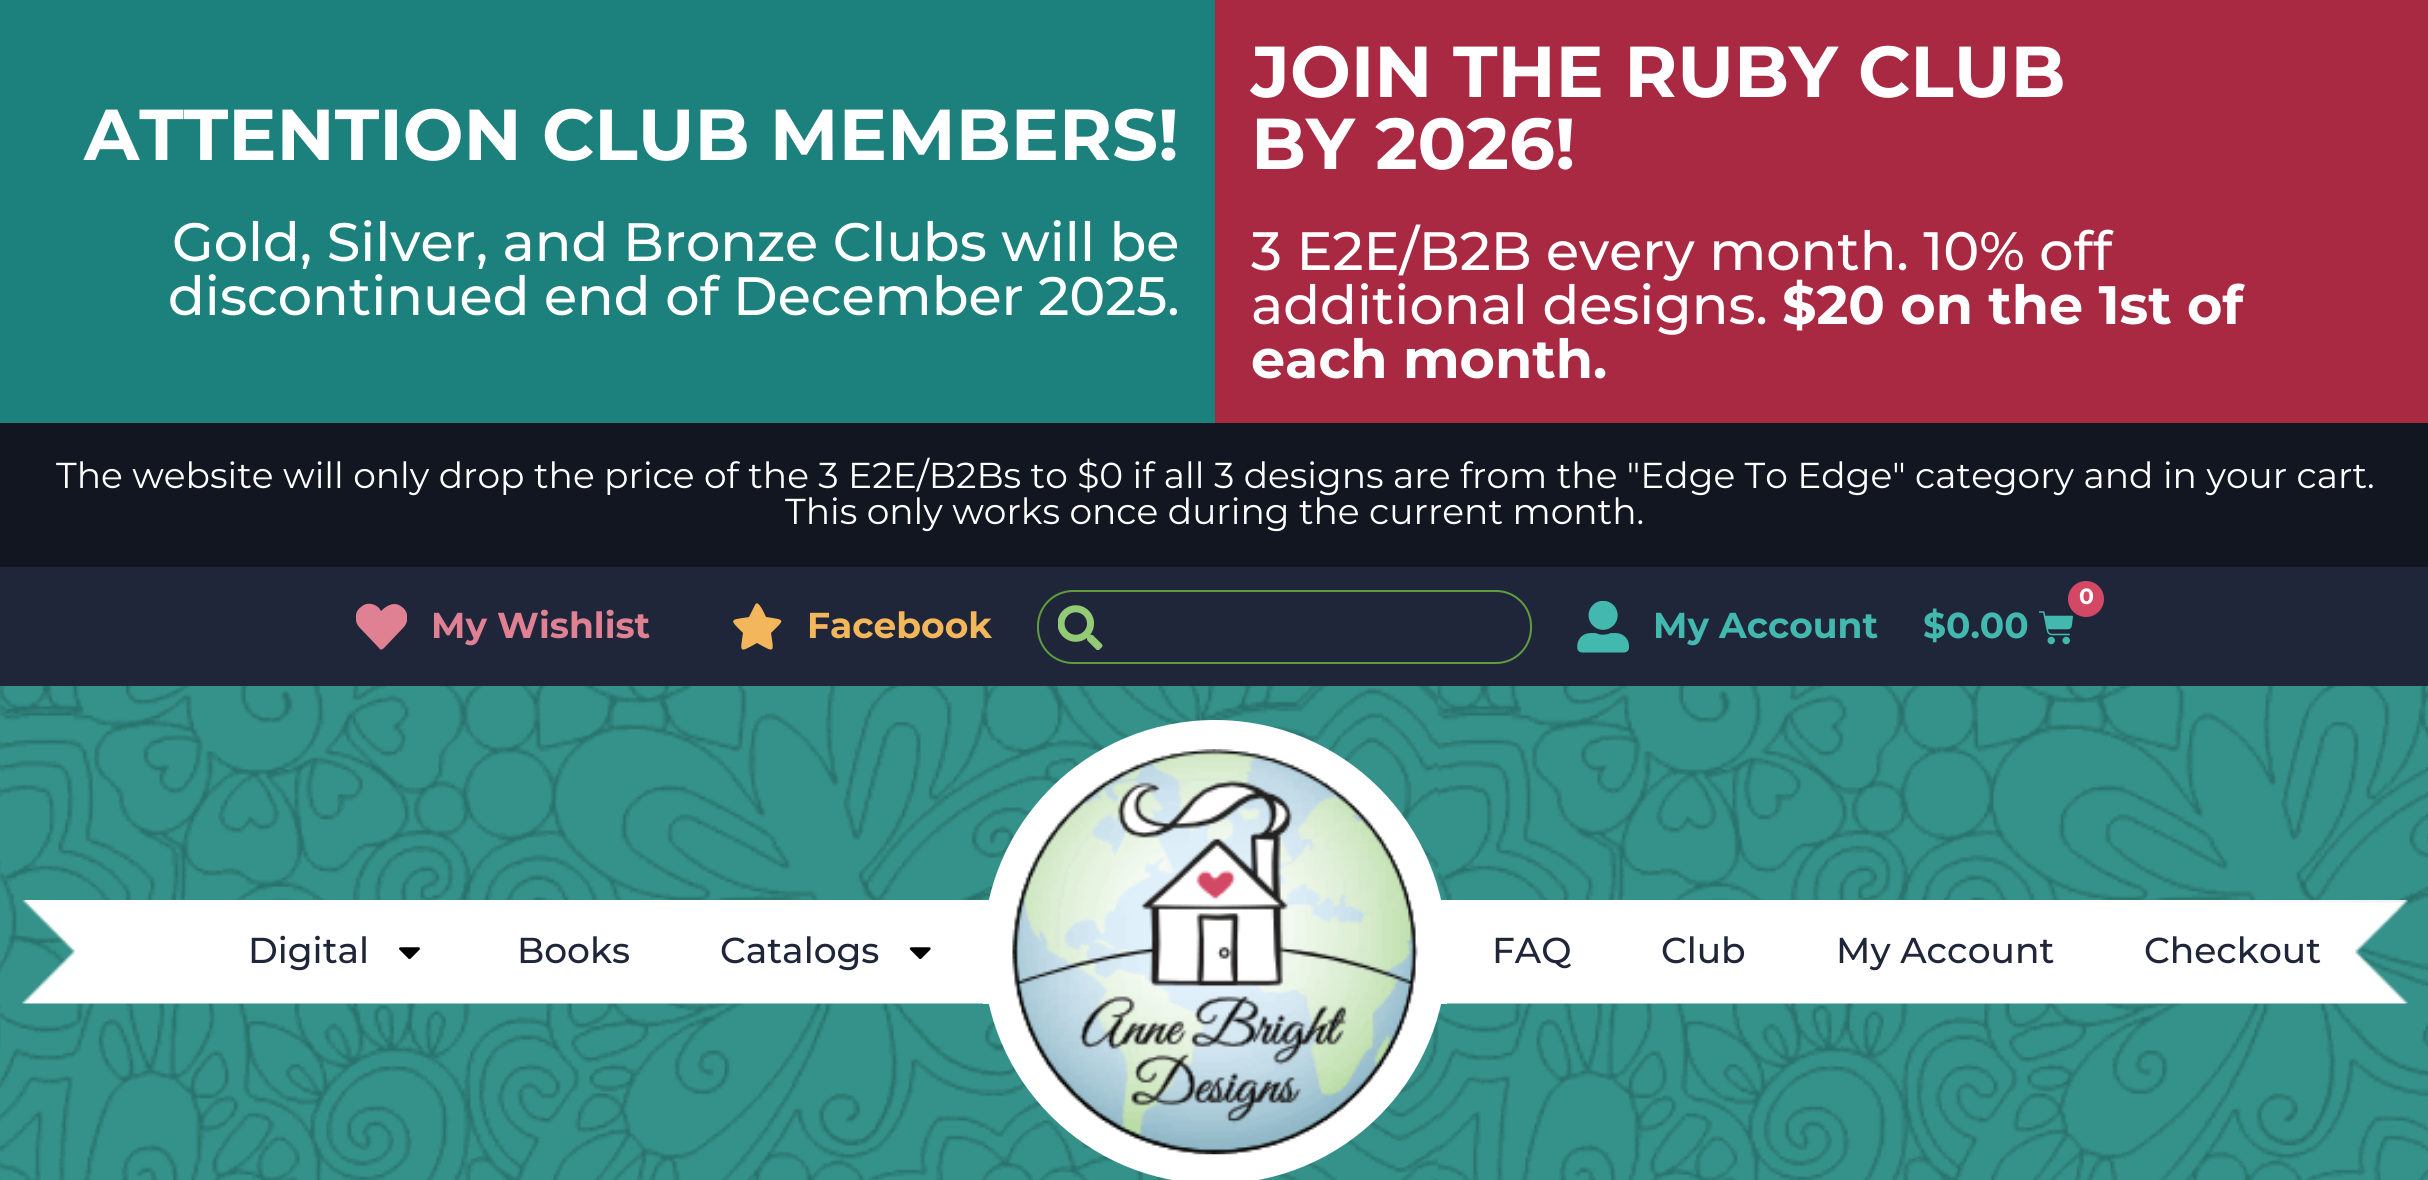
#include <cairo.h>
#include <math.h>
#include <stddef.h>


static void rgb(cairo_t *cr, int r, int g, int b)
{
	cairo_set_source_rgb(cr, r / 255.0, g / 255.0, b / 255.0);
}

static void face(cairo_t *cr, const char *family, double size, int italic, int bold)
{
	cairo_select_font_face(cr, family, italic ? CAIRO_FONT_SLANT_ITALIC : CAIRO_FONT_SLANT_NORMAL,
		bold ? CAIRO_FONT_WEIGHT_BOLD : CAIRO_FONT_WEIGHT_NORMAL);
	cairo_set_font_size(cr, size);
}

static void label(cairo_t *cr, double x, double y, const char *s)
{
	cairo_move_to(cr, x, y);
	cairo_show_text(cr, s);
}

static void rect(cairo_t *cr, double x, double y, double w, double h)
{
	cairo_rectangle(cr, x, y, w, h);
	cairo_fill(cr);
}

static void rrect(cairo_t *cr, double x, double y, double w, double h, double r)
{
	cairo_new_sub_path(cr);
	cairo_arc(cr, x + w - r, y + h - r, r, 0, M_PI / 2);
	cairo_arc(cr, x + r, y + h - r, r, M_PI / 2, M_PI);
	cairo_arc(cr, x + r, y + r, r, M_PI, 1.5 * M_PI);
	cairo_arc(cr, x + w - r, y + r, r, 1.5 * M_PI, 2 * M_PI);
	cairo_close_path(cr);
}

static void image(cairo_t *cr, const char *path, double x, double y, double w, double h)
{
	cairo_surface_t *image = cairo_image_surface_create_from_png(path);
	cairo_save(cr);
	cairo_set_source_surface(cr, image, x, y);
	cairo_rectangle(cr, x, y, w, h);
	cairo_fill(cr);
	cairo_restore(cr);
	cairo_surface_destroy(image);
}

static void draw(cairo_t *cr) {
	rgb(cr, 255, 255, 255);
	cairo_paint(cr);
	image(cr, "image0.png", 0, 686, 2428, 494);
	rgb(cr, 28, 129, 125);
	rect(cr, 0, 0, 1215, 423);
	face(cr, "Montserrat", 72, 0, 1);
	rgb(cr, 255, 255, 255);
	label(cr, 84, 160, "ATTENTION CLUB MEMBERS!");
	face(cr, "Montserrat Medium", 54, 0, 0);
	label(cr, 172, 261, "Gold, Silver, and Bronze Clubs will be");
	label(cr, 168, 315, "discontinued end of December 2025.");
	rgb(cr, 169, 41, 66);
	rect(cr, 1215, 0, 1213, 423);
	face(cr, "Montserrat", 72, 0, 1);
	rgb(cr, 255, 255, 255);
	label(cr, 1251, 97, "JOIN THE RUBY CLUB");
	label(cr, 1251, 169, "BY 2026!");
	face(cr, "Montserrat Medium", 54, 0, 0);
	label(cr, 1251, 270, "3 E2E/B2B every month. 10% off");
	label(cr, 1251, 324, "additional designs.");
	face(cr, "Montserrat", 54, 0, 1);
	label(cr, 1782, 324, "$20 on the 1st of");
	label(cr, 1251, 378, "each month.");
	rgb(cr, 18, 22, 33);
	rect(cr, 0, 423, 2428, 144);
	face(cr, "Montserrat", 36, 0, 0);
	rgb(cr, 255, 255, 255);
	label(cr, 56, 488, "The website will only drop the price of the 3 E2E/B2Bs to $0 if all 3 designs are from the \"Edge To Edge\" category and in your cart.");
	label(cr, 785, 524, "This only works once during the current month.");
	rgb(cr, 31, 38, 58);
	rect(cr, 0, 567, 2428, 119);
	cairo_save(cr);
	cairo_rectangle(cr, 356, 601, 51, 52);
	cairo_clip(cr);
	rgb(cr, 224, 128, 147);
	cairo_new_path(cr);
	cairo_move_to(cr, 402, 607);
	cairo_curve_to(cr, 395, 601, 387, 605, 381, 611);
	cairo_line_to(cr, 379, 608);
	cairo_curve_to(cr, 374, 603, 366, 602, 361, 607);
	cairo_curve_to(cr, 354, 612, 354, 622, 360, 628);
	cairo_line_to(cr, 379, 648);
	cairo_curve_to(cr, 380, 650, 382, 650, 384, 648);
	cairo_line_to(cr, 403, 628);
	cairo_curve_to(cr, 409, 622, 409, 612, 402, 607);
	cairo_close_path(cr);
	cairo_fill(cr);
	cairo_restore(cr);
	face(cr, "Montserrat", 36, 0, 1);
	rgb(cr, 224, 128, 147);
	label(cr, 431, 638, "My Wishlist");
	rgb(cr, 243, 182, 91);
	cairo_new_path(cr);
	cairo_move_to(cr, 755, 605);
	cairo_line_to(cr, 749, 617);
	cairo_curve_to(cr, 729, 620, 729, 619, 743, 633);
	cairo_curve_to(cr, 740, 653, 739, 653, 757, 643);
	cairo_curve_to(cr, 775, 653, 774, 653, 771, 633);
	cairo_curve_to(cr, 785, 619, 786, 620, 766, 617);
	cairo_curve_to(cr, 765, 615, 758, 598, 755, 605);
	cairo_close_path(cr);
	cairo_fill(cr);
	label(cr, 807, 638, "Facebook");
	rrect(cr, 1038, 591, 493, 72, 35);
	rgb(cr, 94, 157, 61);
	cairo_stroke(cr);
	image(cr, "image1.png", 1058, 605, 45, 45);
	image(cr, "image2.png", 1577, 601, 52, 52);
	rgb(cr, 66, 184, 174);
	label(cr, 1653, 638, "My Account");
	image(cr, "image3.png", 2039, 611, 34, 34);
	rgb(cr, 211, 72, 100);
	cairo_arc(cr, 2086, 599, 18, 0, 2 * M_PI);
	cairo_fill(cr);
	face(cr, "Montserrat", 22, 0, 1);
	rgb(cr, 255, 255, 255);
	label(cr, 2079, 604, "0");
	face(cr, "Montserrat", 36, 0, 1);
	rgb(cr, 66, 184, 174);
	label(cr, 1923, 638, "$0.00");
	image(cr, "image4.png", 22, 900, 961, 104);
	face(cr, "Montserrat Medium", 36, 0, 0);
	rgb(cr, 31, 38, 58);
	label(cr, 248, 963, "Digital");
	image(cr, "image5.png", 399, 947, 21, 13);
	label(cr, 517, 963, "Books");
	label(cr, 720, 963, "Catalogs");
	image(cr, "image6.png", 909, 947, 22, 13);
	rgb(cr, 255, 255, 255);
	cairo_arc(cr, 1215, 952, 232, 0, 2 * M_PI);
	cairo_fill(cr);
	rect(cr, 983, 900, 464, 104);
	image(cr, "image7.png", 1012, 749, 406, 406);
	image(cr, "image8.png", 1447, 900, 961, 104);
	rgb(cr, 31, 38, 58);
	label(cr, 1492, 963, "FAQ");
	label(cr, 1661, 963, "Club");
	label(cr, 1836, 963, "My Account");
	label(cr, 2144, 963, "Checkout");
}

int main(void) {
	cairo_surface_t *surface = cairo_image_surface_create(CAIRO_FORMAT_RGB24, 2428, 1180);
	cairo_t *cr = cairo_create(surface);
	cairo_font_options_t *options = cairo_font_options_create();
	cairo_font_options_set_hint_metrics(options, CAIRO_HINT_METRICS_OFF);
	cairo_font_options_set_hint_style(options, CAIRO_HINT_STYLE_NONE);
	cairo_set_font_options(cr, options);
	cairo_set_miter_limit(cr, 4);
	draw(cr);
	cairo_surface_write_to_png(surface, "render.png");
	cairo_font_options_destroy(options);
	cairo_destroy(cr);
	cairo_surface_destroy(surface);
	return 0;
}
